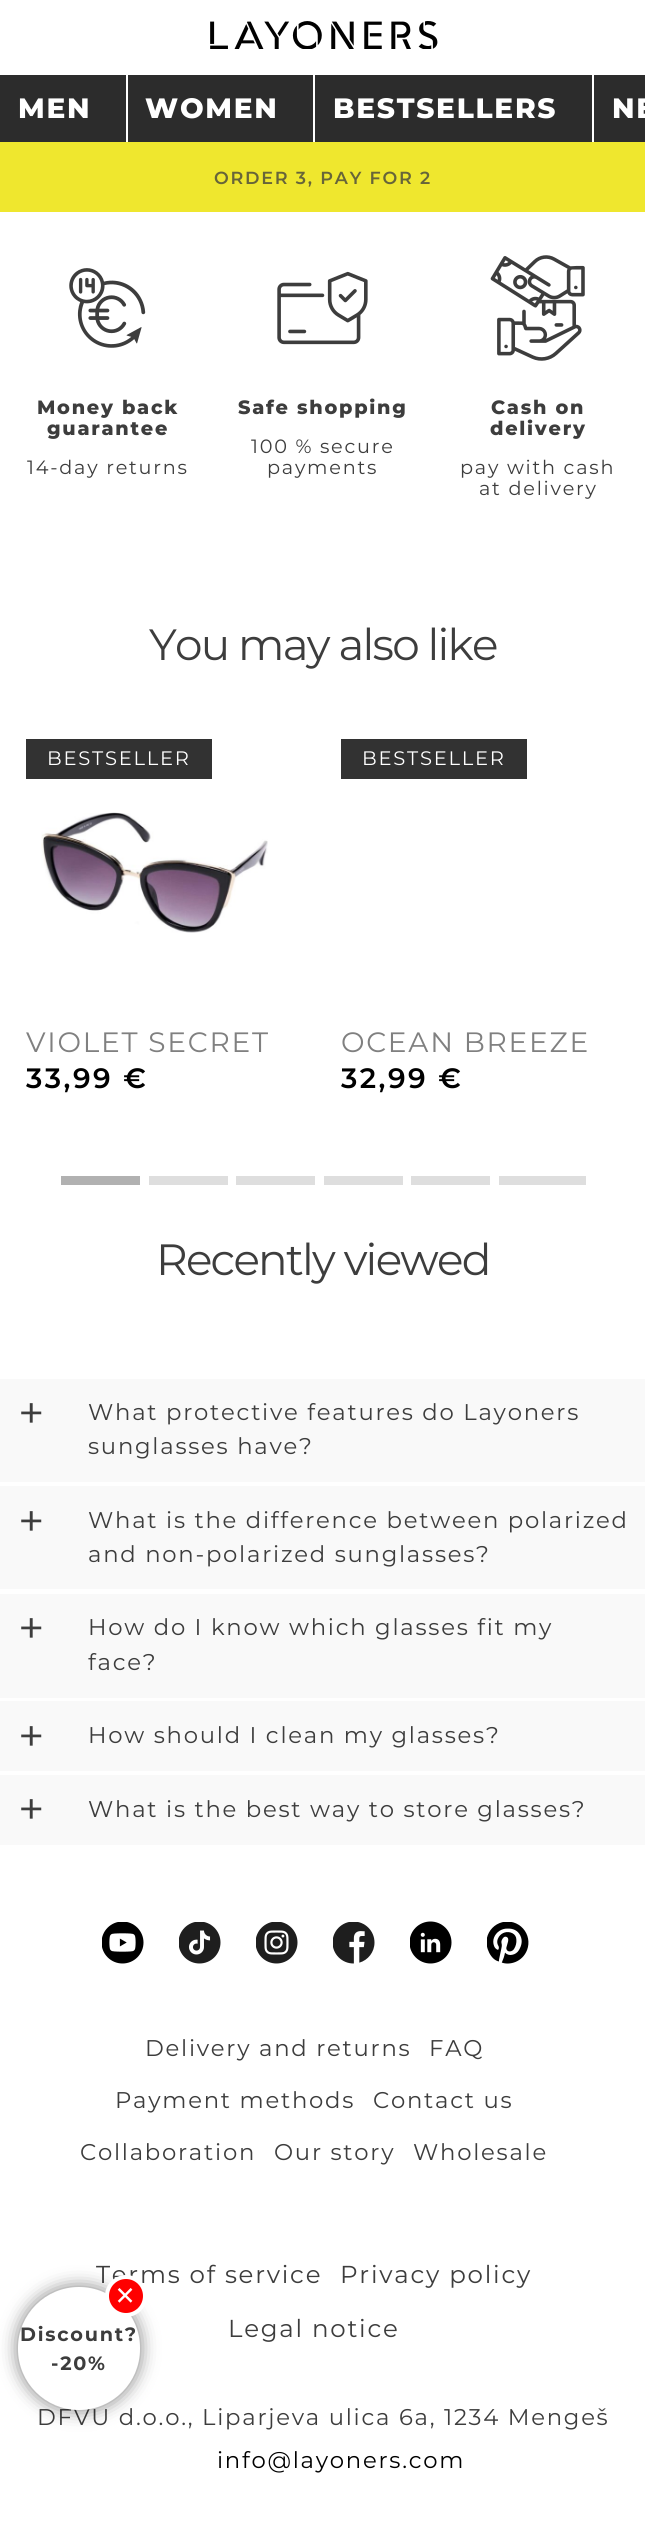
#include <cairo.h>
#include <math.h>
#include <stddef.h>


static void rgb(cairo_t *cr, int r, int g, int b)
{
	cairo_set_source_rgb(cr, r / 255.0, g / 255.0, b / 255.0);
}

static void face(cairo_t *cr, const char *family, double size, int italic, int bold)
{
	cairo_select_font_face(cr, family, italic ? CAIRO_FONT_SLANT_ITALIC : CAIRO_FONT_SLANT_NORMAL,
		bold ? CAIRO_FONT_WEIGHT_BOLD : CAIRO_FONT_WEIGHT_NORMAL);
	cairo_set_font_size(cr, size);
}

static void tracked(cairo_t *cr, double x, double y, const char *s, double letter, double word)
{
	cairo_move_to(cr, x, y);
	while (*s) {
		char ch[5] = {0};
		int n = 0;
		do ch[n++] = *s++; while ((*s & 0xC0) == 0x80);
		cairo_show_text(cr, ch);
		cairo_rel_move_to(cr, letter + word * (*ch == ' '), 0);
	}
}

static void rect(cairo_t *cr, double x, double y, double w, double h)
{
	cairo_rectangle(cr, x, y, w, h);
	cairo_fill(cr);
}

static void rrect(cairo_t *cr, double x, double y, double w, double h, double r)
{
	cairo_new_sub_path(cr);
	cairo_arc(cr, x + w - r, y + h - r, r, 0, M_PI / 2);
	cairo_arc(cr, x + r, y + h - r, r, M_PI / 2, M_PI);
	cairo_arc(cr, x + r, y + r, r, M_PI, 1.5 * M_PI);
	cairo_arc(cr, x + w - r, y + r, r, 1.5 * M_PI, 2 * M_PI);
	cairo_close_path(cr);
}

static void soft_shadow(cairo_t *cr, double x, double y, double w, double h, double r, double blur, double alpha)
{
	cairo_push_group_with_content(cr, CAIRO_CONTENT_ALPHA);
	cairo_set_operator(cr, CAIRO_OPERATOR_SOURCE);
	for (int i = 15; i >= -15 && fmin(w, h) + blur * i / 3 > 0; i -= 2) {
		double e = blur * i / 6;
		cairo_set_source_rgba(cr, 0, 0, 0, alpha * erfc((i - 1) / 8.5) / 2);
		rrect(cr, x - e, y - e, w + 2 * e, h + 2 * e, fmax(0, fmin(r + e + blur * .6, fmin(w, h) / 2 + e)));
		cairo_fill(cr);
	}
	cairo_pattern_t *soft = cairo_pop_group(cr);
	cairo_mask(cr, soft);
	cairo_pattern_destroy(soft);
}

static void image(cairo_t *cr, const char *path, double x, double y, double w, double h)
{
	cairo_surface_t *image = cairo_image_surface_create_from_png(path);
	cairo_save(cr);
	cairo_set_source_surface(cr, image, x, y);
	cairo_rectangle(cr, x, y, w, h);
	cairo_fill(cr);
	cairo_restore(cr);
	cairo_surface_destroy(image);
}

static void draw(cairo_t *cr) {
	rgb(cr, 255, 255, 255);
	cairo_paint(cr);
	image(cr, "image0.png", 210, 21, 228, 28);
	rgb(cr, 44, 44, 44);
	rect(cr, 0, 75, 645, 67);
	face(cr, "Montserrat ExtraBold", 28, 0, 0);
	rgb(cr, 255, 255, 255);
	tracked(cr, 18, 118, "MEN", 1.75, 0);
	rect(cr, 126, 75, 2, 67);
	tracked(cr, 145, 118, "WOMEN", 1.75, 0);
	rect(cr, 313, 75, 2, 67);
	tracked(cr, 333, 118, "BESTSELLERS", 1.75, 0);
	rect(cr, 592, 75, 2, 67);
	tracked(cr, 612, 118, "NE", 1.75, 0);
	rgb(cr, 239, 231, 46);
	rect(cr, 0, 142, 645, 70);
	face(cr, "Montserrat SemiBold", 17.5, 0, 0);
	rgb(cr, 103, 101, 57);
	tracked(cr, 214, 184, "ORDER 3, PAY FOR 2", 1.75, 0);
	image(cr, "image1.png", 69, 268, 77, 80);
	face(cr, "Montserrat ExtraBold", 19.25, 0, 0);
	rgb(cr, 61, 61, 61);
	tracked(cr, 37, 414, "Money back", 1.75, 0);
	tracked(cr, 47, 435, "guarantee", 1.75, 0);
	face(cr, "Montserrat", 19.25, 0, 0);
	tracked(cr, 27, 474, "14-day returns", 1.75, 0);
	image(cr, "image2.png", 277, 271, 91, 74);
	face(cr, "Montserrat ExtraBold", 19.25, 0, 0);
	tracked(cr, 238, 414, "Safe shopping", 1.75, 0);
	face(cr, "Montserrat", 19.25, 0, 0);
	tracked(cr, 251, 453, "100 % secure", 1.75, 0);
	tracked(cr, 267, 474, "payments", 1.75, 0);
	image(cr, "image3.png", 490, 255, 95, 106);
	face(cr, "Montserrat ExtraBold", 19.25, 0, 0);
	tracked(cr, 491, 414, "Cash on", 1.75, 0);
	tracked(cr, 490, 435, "delivery", 1.75, 0);
	face(cr, "Montserrat", 19.25, 0, 0);
	tracked(cr, 460, 474, "pay with cash", 1.75, 0);
	tracked(cr, 479, 495, "at delivery", 1.75, 0);
	face(cr, "Montserrat", 43.75, 0, 0);
	tracked(cr, 149, 660, "You may also like", -1.75, 0);
	rgb(cr, 50, 50, 50);
	rect(cr, 26, 739, 186, 40);
	face(cr, "Montserrat", 19.5, 0, 0);
	rgb(cr, 255, 255, 255);
	tracked(cr, 47, 765, "BESTSELLER", 1.75, 0);
	image(cr, "image4.png", 41, 812, 227, 121);
	face(cr, "Montserrat", 28, 0, 0);
	rgb(cr, 128, 128, 128);
	tracked(cr, 26, 1052, "VIOLET SECRET", 1.75, 0);
	face(cr, "Montserrat SemiBold", 28, 0, 0);
	rgb(cr, 0, 0, 0);
	tracked(cr, 26, 1088, "33,99 €", 2.5, 0);
	rgb(cr, 50, 50, 50);
	rect(cr, 341, 739, 186, 40);
	face(cr, "Montserrat", 19.5, 0, 0);
	rgb(cr, 255, 255, 255);
	tracked(cr, 362, 765, "BESTSELLER", 1.75, 0);
	face(cr, "Montserrat", 28, 0, 0);
	rgb(cr, 128, 128, 128);
	tracked(cr, 341, 1052, "OCEAN BREEZE", 1.75, 0);
	face(cr, "Montserrat SemiBold", 28, 0, 0);
	rgb(cr, 0, 0, 0);
	tracked(cr, 341, 1088, "32,99 €", 2.5, 0);
	rgb(cr, 177, 177, 177);
	rect(cr, 61, 1176, 79, 9);
	rgb(cr, 222, 222, 222);
	rect(cr, 149, 1176, 79, 9);
	rect(cr, 236, 1176, 79, 9);
	rect(cr, 324, 1176, 79, 9);
	rect(cr, 411, 1176, 79, 9);
	rect(cr, 499, 1176, 87, 9);
	face(cr, "Montserrat", 43.75, 0, 0);
	rgb(cr, 61, 61, 61);
	tracked(cr, 156, 1275, "Recently viewed", -1.75, 0);
	rgb(cr, 249, 249, 249);
	rect(cr, 0, 1379, 645, 103);
	face(cr, "Montserrat", 46, 0, 0);
	rgb(cr, 61, 61, 61);
	tracked(cr, 18, 1429, "+", 1.75, 0);
	face(cr, "Montserrat", 22.75, 0, 0);
	tracked(cr, 88, 1420, "What protective features do Layoners", 1.75, 0);
	tracked(cr, 88, 1454, "sunglasses have?", 1.75, 0);
	rgb(cr, 249, 249, 249);
	rect(cr, 0, 1486, 645, 103);
	face(cr, "Montserrat", 46, 0, 0);
	rgb(cr, 61, 61, 61);
	tracked(cr, 18, 1537, "+", 1.75, 0);
	face(cr, "Montserrat", 22.75, 0, 0);
	tracked(cr, 88, 1528, "What is the difference between polarized", 1.75, 0);
	tracked(cr, 88, 1562, "and non-polarized sunglasses?", 1.75, 0);
	rgb(cr, 249, 249, 249);
	rect(cr, 0, 1594, 645, 104);
	face(cr, "Montserrat", 46, 0, 0);
	rgb(cr, 61, 61, 61);
	tracked(cr, 18, 1644, "+", 1.75, 0);
	face(cr, "Montserrat", 22.75, 0, 0);
	tracked(cr, 88, 1635, "How do I know which glasses fit my", 1.75, 0);
	tracked(cr, 88, 1670, "face?", 1.75, 0);
	rgb(cr, 249, 249, 249);
	rect(cr, 0, 1701, 645, 70);
	face(cr, "Montserrat", 46, 0, 0);
	rgb(cr, 61, 61, 61);
	tracked(cr, 18, 1752, "+", 1.75, 0);
	face(cr, "Montserrat", 22.75, 0, 0);
	tracked(cr, 88, 1743, "How should I clean my glasses?", 1.75, 0);
	rgb(cr, 249, 249, 249);
	rect(cr, 0, 1775, 645, 70);
	face(cr, "Montserrat", 46, 0, 0);
	rgb(cr, 61, 61, 61);
	tracked(cr, 18, 1825, "+", 1.75, 0);
	face(cr, "Montserrat", 22.75, 0, 0);
	tracked(cr, 88, 1817, "What is the best way to store glasses?", 1.75, 0);
	image(cr, "image5.png", 102, 1922, 42, 42);
	image(cr, "image6.png", 179, 1922, 42, 42);
	image(cr, "image7.png", 256, 1922, 42, 42);
	image(cr, "image8.png", 333, 1922, 42, 42);
	image(cr, "image9.png", 410, 1921, 42, 43);
	image(cr, "image10.png", 487, 1922, 42, 42);
	tracked(cr, 145, 2056, "Delivery and returns", 1.75, 0);
	tracked(cr, 429, 2056, "FAQ", 1.75, 0);
	tracked(cr, 115, 2108, "Payment methods", 1.75, 0);
	tracked(cr, 373, 2108, "Contact us", 1.75, 0);
	tracked(cr, 80, 2160, "Collaboration", 1.75, 0);
	tracked(cr, 274, 2160, "Our story", 1.75, 0);
	tracked(cr, 413, 2160, "Wholesale", 1.75, 0);
	face(cr, "Montserrat", 24.5, 0, 0);
	tracked(cr, 96, 2283, "Terms of service", 1.75, 0);
	tracked(cr, 340, 2283, "Privacy policy", 1.75, 0);
	tracked(cr, 228, 2337, "Legal notice", 1.75, 0);
	face(cr, "Montserrat", 22.75, 0, 0);
	tracked(cr, 37, 2425, "DFVU d.o.o., Liparjeva ulica 6a, 1234 Mengeš", 1.75, 0);
	rgb(cr, 0, 0, 0);
	tracked(cr, 217, 2468, "info@layoners.com", 1.75, 0);
	rgb(cr, 0, 0, 0);
	soft_shadow(cr, 18, 2287, 122, 123, 61, 9, 0.5);
	rgb(cr, 255, 255, 255);
	rrect(cr, 18, 2287, 122, 123, 61);
	cairo_fill(cr);
	rgb(cr, 255, 0, 0);
	cairo_arc(cr, 126, 2296, 19, 0, 2 * M_PI);
	cairo_fill_preserve(cr);
	rgb(cr, 255, 255, 255);
	cairo_set_line_width(cr, 4);
	cairo_stroke(cr);
	face(cr, "Montserrat", 42, 0, 0);
	tracked(cr, 113, 2310, "×", 1.75, 0);
	face(cr, "Montserrat", 19.25, 0, 1);
	rgb(cr, 61, 61, 61);
	tracked(cr, 20, 2341, "Discount?", 1.75, 0);
	tracked(cr, 51, 2370, "-20%", 1.75, 0);
}

int main(void) {
	cairo_surface_t *surface = cairo_image_surface_create(CAIRO_FORMAT_RGB24, 645, 2531);
	cairo_t *cr = cairo_create(surface);
	cairo_font_options_t *options = cairo_font_options_create();
	cairo_font_options_set_hint_metrics(options, CAIRO_HINT_METRICS_OFF);
	cairo_font_options_set_hint_style(options, CAIRO_HINT_STYLE_NONE);
	cairo_set_font_options(cr, options);
	cairo_set_miter_limit(cr, 4);
	draw(cr);
	cairo_surface_write_to_png(surface, "render.png");
	cairo_font_options_destroy(options);
	cairo_destroy(cr);
	cairo_surface_destroy(surface);
	return 0;
}
